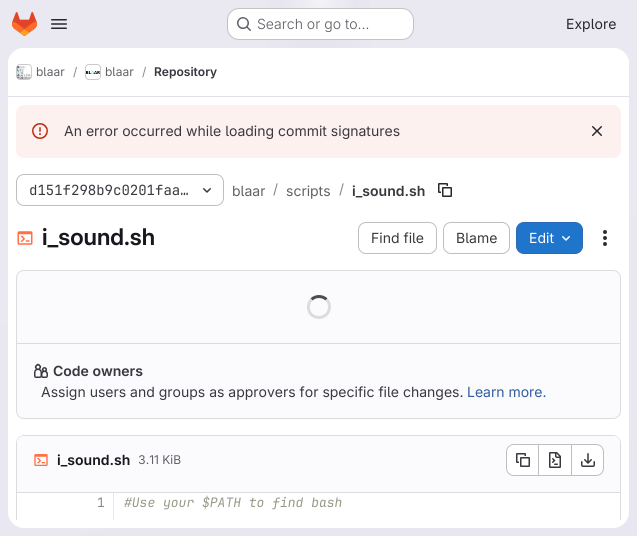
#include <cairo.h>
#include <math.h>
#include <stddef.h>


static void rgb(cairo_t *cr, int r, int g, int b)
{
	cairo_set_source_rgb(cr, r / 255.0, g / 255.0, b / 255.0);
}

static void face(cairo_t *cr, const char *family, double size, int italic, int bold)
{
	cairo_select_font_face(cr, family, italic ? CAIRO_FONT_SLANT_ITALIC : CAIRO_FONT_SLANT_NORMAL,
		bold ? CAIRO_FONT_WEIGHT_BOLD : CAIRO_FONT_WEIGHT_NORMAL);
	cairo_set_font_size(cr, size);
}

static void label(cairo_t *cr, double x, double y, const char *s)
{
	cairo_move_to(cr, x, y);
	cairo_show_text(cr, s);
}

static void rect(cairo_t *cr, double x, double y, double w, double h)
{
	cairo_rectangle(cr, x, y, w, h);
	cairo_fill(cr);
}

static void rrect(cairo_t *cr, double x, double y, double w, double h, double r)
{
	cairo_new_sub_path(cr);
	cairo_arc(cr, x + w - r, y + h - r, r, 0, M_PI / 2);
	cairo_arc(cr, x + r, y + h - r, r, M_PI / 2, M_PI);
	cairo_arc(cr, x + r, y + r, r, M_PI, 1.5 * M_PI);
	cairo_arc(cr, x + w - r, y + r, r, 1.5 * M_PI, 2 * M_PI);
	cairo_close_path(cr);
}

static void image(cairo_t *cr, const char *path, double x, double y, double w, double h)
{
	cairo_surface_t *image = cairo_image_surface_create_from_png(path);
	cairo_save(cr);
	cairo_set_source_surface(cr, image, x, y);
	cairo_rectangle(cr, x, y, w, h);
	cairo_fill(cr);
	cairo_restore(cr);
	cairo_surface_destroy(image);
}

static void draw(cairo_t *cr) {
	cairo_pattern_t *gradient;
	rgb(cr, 255, 255, 255);
	cairo_paint(cr);
	gradient = cairo_pattern_create_linear(374, 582, 263, -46);
	cairo_pattern_add_color_stop_rgba(gradient, 0, 0.91, 0.902, 0.941, 1);
	cairo_pattern_add_color_stop_rgba(gradient, 0.7, 0.918, 0.914, 0.949, 1);
	cairo_set_source(cr, gradient);
	cairo_pattern_destroy(gradient);
	rect(cr, 0, 0, 637, 536);
	gradient = cairo_pattern_create_radial(0, 0, 0, 0, 0, 1);
	cairo_pattern_set_matrix(gradient, &(cairo_matrix_t){1.0 / 319, 0, 0, 1.0 / 536, -1.0 * 319 / 319, -1.0 * 0 / 536});
	cairo_pattern_add_color_stop_rgba(gradient, 0, 0.894, 0.886, 0.929, 1);
	cairo_pattern_add_color_stop_rgba(gradient, 0.22, 0.894, 0.886, 0.929, 0);
	cairo_set_source(cr, gradient);
	cairo_pattern_destroy(gradient);
	rect(cr, 268, 0, 102, 48);
	gradient = cairo_pattern_create_radial(0, 0, 0, 0, 0, 1);
	cairo_pattern_set_matrix(gradient, &(cairo_matrix_t){1.0 / 319, 0, 0, 1.0 / 536, -1.0 * 319 / 319, -1.0 * 0 / 536});
	cairo_pattern_add_color_stop_rgba(gradient, 0, 0.894, 0.886, 0.925, 1);
	cairo_pattern_add_color_stop_rgba(gradient, 0.16, 0.894, 0.886, 0.925, 0);
	cairo_set_source(cr, gradient);
	cairo_pattern_destroy(gradient);
	rect(cr, 295, 8, 33, 32);
	gradient = cairo_pattern_create_radial(319, 0, 0, 319, 0, 623);
	cairo_pattern_add_color_stop_rgba(gradient, 0, 1, 1, 1, 0.6);
	cairo_pattern_add_color_stop_rgba(gradient, 0.06, 1, 1, 1, 0);
	cairo_set_source(cr, gradient);
	cairo_pattern_destroy(gradient);
	rect(cr, 283, 0, 72, 8);
	image(cr, "image0.png", 12, 12, 25, 24);
	image(cr, "image1.png", 51, 19, 16, 10);
	rgb(cr, 255, 255, 255);
	rrect(cr, 227, 8, 187, 32, 12);
	cairo_fill(cr);
	rrect(cr, 227.5, 8.5, 186, 31, 11.5);
	cairo_set_source_rgba(cr, 0.02, 0.02, 0.024, 0.24);
	cairo_set_line_width(cr, 1);
	cairo_stroke(cr);
	image(cr, "image2.png", 237, 17, 14, 14);
	face(cr, "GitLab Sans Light", 14, 0, 0);
	rgb(cr, 98, 97, 104);
	label(cr, 257, 29, "Search or go to…");
	face(cr, "GitLab Sans", 14, 0, 0);
	rgb(cr, 40, 39, 45);
	label(cr, 566, 29, "Explore");
	rgb(cr, 255, 255, 255);
	rrect(cr, 8, 48, 621, 480, 16);
	cairo_fill(cr);
	cairo_new_path(cr);
	cairo_move_to(cr, 24, 48);
	cairo_line_to(cr, 613, 48);
	cairo_curve_to(cr, 622, 48, 629, 55, 629, 64);
	cairo_line_to(cr, 629, 97);
	cairo_line_to(cr, 8, 97);
	cairo_line_to(cr, 8, 64);
	cairo_curve_to(cr, 8, 55, 15, 48, 24, 48);
	cairo_close_path(cr);
	cairo_fill(cr);
	rgb(cr, 225, 223, 236);
	rect(cr, 8, 96, 621, 1);
	rrect(cr, 16.5, 64.5, 15, 15, 3.5);
	rgb(cr, 220, 220, 222);
	cairo_stroke(cr);
	image(cr, "image3.png", 17, 66, 14, 13);
	rrect(cr, 16.5, 64.5, 15, 15, 3.5);
	cairo_set_source_rgba(cr, 0.02, 0.02, 0.024, 0.08);
	cairo_stroke(cr);
	face(cr, "GitLab Sans", 12, 0, 0);
	rgb(cr, 98, 97, 104);
	label(cr, 36, 76, "blaar");
	rgb(cr, 137, 136, 141);
	label(cr, 73, 76, "/");
	rrect(cr, 85.5, 64.5, 15, 15, 3.5);
	rgb(cr, 220, 220, 222);
	cairo_stroke(cr);
	image(cr, "image4.png", 86, 71, 14, 3);
	rrect(cr, 85.5, 64.5, 15, 15, 3.5);
	cairo_set_source_rgba(cr, 0.02, 0.02, 0.024, 0.08);
	cairo_stroke(cr);
	rgb(cr, 98, 97, 104);
	label(cr, 105, 76, "blaar");
	rgb(cr, 137, 136, 141);
	label(cr, 142, 76, "/");
	face(cr, "GitLab Sans SemiBold", 12, 0, 0);
	rgb(cr, 58, 56, 63);
	label(cr, 154, 76, "Repository");
	rgb(cr, 252, 241, 239);
	rrect(cr, 16, 105, 605, 53, 8);
	cairo_fill(cr);
	image(cr, "image5.png", 32, 123, 16, 16);
	face(cr, "GitLab Sans", 14, 0, 0);
	rgb(cr, 58, 56, 63);
	label(cr, 64, 136, "An error occurred while loading commit signatures");
	image(cr, "image6.png", 592, 126, 10, 10);
	rrect(cr, 16.5, 174.5, 207, 31, 7.5);
	rgb(cr, 191, 191, 195);
	cairo_stroke(cr);
	face(cr, "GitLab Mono", 14, 0, 0);
	rgb(cr, 58, 56, 63);
	label(cr, 29, 195, "d151f298b9c0201faa…");
	image(cr, "image7.png", 203, 188, 8, 5);
	face(cr, "GitLab Sans", 14, 0, 0);
	rgb(cr, 98, 97, 104);
	label(cr, 232, 196, "blaar");
	rgb(cr, 137, 136, 141);
	label(cr, 273, 194, "/");
	rgb(cr, 98, 97, 104);
	label(cr, 286, 196, "scripts");
	rgb(cr, 137, 136, 141);
	label(cr, 339, 194, "/");
	face(cr, "GitLab Sans SemiBold", 14, 0, 0);
	rgb(cr, 58, 56, 63);
	label(cr, 352, 196, "i_sound.sh");
	image(cr, "image8.png", 438, 183, 14, 14);
	image(cr, "image9.png", 17, 231, 16, 14);
	face(cr, "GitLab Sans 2 SemiBold", 23, 0, 0);
	rgb(cr, 24, 23, 29);
	label(cr, 42, 245, "i_sound.sh");
	rrect(cr, 358.5, 222.5, 78, 31, 7.5);
	rgb(cr, 191, 191, 195);
	cairo_stroke(cr);
	face(cr, "GitLab Sans", 14, 0, 0);
	rgb(cr, 58, 56, 63);
	label(cr, 371, 243, "Find file");
	rrect(cr, 443.5, 222.5, 66, 31, 7.5);
	rgb(cr, 191, 191, 195);
	cairo_stroke(cr);
	rgb(cr, 58, 56, 63);
	label(cr, 456, 243, "Blame");
	rgb(cr, 31, 117, 203);
	rrect(cr, 516.5, 222.5, 66, 31, 7.5);
	cairo_fill_preserve(cr);
	rgb(cr, 47, 104, 180);
	cairo_stroke(cr);
	rgb(cr, 255, 255, 255);
	label(cr, 529, 243, "Edit");
	image(cr, "image10.png", 562, 236, 8, 5);
	image(cr, "image11.png", 603, 230, 4, 16);
	rgb(cr, 251, 250, 253);
	rrect(cr, 16.5, 270.5, 604, 148, 7.5);
	cairo_fill_preserve(cr);
	rgb(cr, 220, 220, 222);
	cairo_stroke(cr);
	cairo_new_path(cr);
	cairo_move_to(cr, 311.5, 299.5);
	cairo_curve_to(cr, 315.5, 295.5, 322.5, 295.5, 326.5, 299.5);
	rgb(cr, 76, 75, 81);
	cairo_set_line_width(cr, 3);
	cairo_stroke(cr);
	cairo_new_path(cr);
	cairo_move_to(cr, 326.5, 299.5);
	cairo_curve_to(cr, 328.5, 301.5, 329.5, 304, 329.5, 307);
	cairo_curve_to(cr, 329.5, 319.5, 311, 321.5, 308.5, 309);
	cairo_curve_to(cr, 308, 305.5, 309, 302, 311.5, 299.5);
	rgb(cr, 220, 220, 222);
	cairo_stroke(cr);
	rect(cr, 17, 343, 603, 1);
	image(cr, "image12.png", 34, 363, 14, 15);
	face(cr, "GitLab Sans SemiBold", 14, 0, 0);
	rgb(cr, 58, 56, 63);
	label(cr, 53, 376, "Code owners");
	face(cr, "GitLab Sans", 14, 0, 0);
	label(cr, 41, 397, "Assign users and groups as approvers for specific file changes.");
	rgb(cr, 47, 92, 160);
	label(cr, 467, 397, "Learn more.");
	cairo_save(cr);
	cairo_rectangle(cr, 8, 97, 621, 423);
	cairo_clip(cr);
	rgb(cr, 220, 220, 222);
	cairo_new_path(cr);
	cairo_move_to(cr, 24, 435);
	cairo_curve_to(cr, 20, 435, 16, 439, 16, 443);
	cairo_line_to(cr, 16, 526);
	cairo_line_to(cr, 17, 526);
	cairo_line_to(cr, 17, 443);
	cairo_curve_to(cr, 17, 439, 20, 436, 24, 436);
	cairo_line_to(cr, 613, 436);
	cairo_curve_to(cr, 617, 436, 620, 439, 620, 443);
	cairo_line_to(cr, 620, 526);
	cairo_line_to(cr, 621, 526);
	cairo_line_to(cr, 621, 443);
	cairo_curve_to(cr, 621, 439, 617, 435, 613, 435);
	cairo_close_path(cr);
	cairo_fill(cr);
	cairo_restore(cr);
	rgb(cr, 251, 250, 253);
	cairo_new_path(cr);
	cairo_move_to(cr, 24, 436);
	cairo_line_to(cr, 613, 436);
	cairo_curve_to(cr, 617, 436, 620, 439, 620, 443);
	cairo_line_to(cr, 620, 493);
	cairo_line_to(cr, 17, 493);
	cairo_line_to(cr, 17, 443);
	cairo_curve_to(cr, 17, 439, 20, 436, 24, 436);
	cairo_close_path(cr);
	cairo_fill(cr);
	rgb(cr, 220, 220, 222);
	rect(cr, 17, 492, 603, 1);
	image(cr, "image13.png", 34, 454, 14, 12);
	face(cr, "GitLab Sans SemiBold", 14, 0, 0);
	rgb(cr, 24, 23, 29);
	label(cr, 57, 465, "i_sound.sh");
	face(cr, "GitLab Sans", 12, 0, 0);
	rgb(cr, 98, 97, 104);
	label(cr, 138, 464, "3.11 KiB");
	rgb(cr, 255, 255, 255);
	cairo_new_path(cr);
	cairo_move_to(cr, 514, 445);
	cairo_line_to(cr, 538, 445);
	cairo_line_to(cr, 538, 475);
	cairo_line_to(cr, 514, 475);
	cairo_curve_to(cr, 510, 475, 507, 472, 507, 468);
	cairo_line_to(cr, 507, 452);
	cairo_curve_to(cr, 507, 448, 510, 445, 514, 445);
	cairo_close_path(cr);
	cairo_fill(cr);
	rgb(cr, 191, 191, 195);
	cairo_set_fill_rule(cr, CAIRO_FILL_RULE_EVEN_ODD);
	cairo_new_path(cr);
	cairo_move_to(cr, 514, 444);
	cairo_line_to(cr, 538, 444);
	cairo_line_to(cr, 538, 476);
	cairo_line_to(cr, 514, 476);
	cairo_curve_to(cr, 509.5, 476, 506, 472.5, 506, 468);
	cairo_line_to(cr, 506, 452);
	cairo_curve_to(cr, 506, 447.5, 509.5, 444, 514, 444);
	cairo_close_path(cr);
	cairo_move_to(cr, 514, 445);
	cairo_line_to(cr, 538, 445);
	cairo_line_to(cr, 538, 475);
	cairo_line_to(cr, 514, 475);
	cairo_curve_to(cr, 510, 475, 507, 472, 507, 468);
	cairo_line_to(cr, 507, 452);
	cairo_curve_to(cr, 507, 448, 510, 445, 514, 445);
	cairo_close_path(cr);
	cairo_fill(cr);
	image(cr, "image14.png", 516, 453, 14, 14);
	rgb(cr, 255, 255, 255);
	rect(cr, 539, 445, 32, 30);
	rgb(cr, 191, 191, 195);
	rect(cr, 539, 444, 32, 1);
	rect(cr, 539, 475, 32, 1);
	rect(cr, 538, 444, 1, 32);
	image(cr, "image15.png", 549, 452, 12, 16);
	rgb(cr, 255, 255, 255);
	cairo_new_path(cr);
	cairo_move_to(cr, 572, 445);
	cairo_line_to(cr, 596, 445);
	cairo_curve_to(cr, 600, 445, 603, 448, 603, 452);
	cairo_line_to(cr, 603, 468);
	cairo_curve_to(cr, 603, 472, 600, 475, 596, 475);
	cairo_line_to(cr, 572, 475);
	cairo_close_path(cr);
	cairo_fill(cr);
	rgb(cr, 191, 191, 195);
	cairo_new_path(cr);
	cairo_move_to(cr, 572, 444);
	cairo_line_to(cr, 596, 444);
	cairo_curve_to(cr, 600.5, 444, 604, 447.5, 604, 452);
	cairo_line_to(cr, 604, 468);
	cairo_curve_to(cr, 604, 472.5, 600.5, 476, 596, 476);
	cairo_line_to(cr, 572, 476);
	cairo_close_path(cr);
	cairo_move_to(cr, 572, 445);
	cairo_line_to(cr, 596, 445);
	cairo_curve_to(cr, 600, 445, 603, 448, 603, 452);
	cairo_line_to(cr, 603, 468);
	cairo_curve_to(cr, 603, 472, 600, 475, 596, 475);
	cairo_line_to(cr, 572, 475);
	cairo_close_path(cr);
	cairo_fill(cr);
	rect(cr, 571, 444, 1, 32);
	image(cr, "image16.png", 581, 453, 14, 14);
	face(cr, "GitLab Mono", 13, 0, 0);
	rgb(cr, 137, 136, 141);
	label(cr, 97, 507, "1");
	rgb(cr, 230, 230, 230);
	rect(cr, 113, 493, 1, 27);
	face(cr, "GitLab Mono", 13, 1, 0);
	rgb(cr, 153, 153, 136);
	label(cr, 124, 507, "#Use your $PATH to find bash");
}

int main(void) {
	cairo_surface_t *surface = cairo_image_surface_create(CAIRO_FORMAT_RGB24, 637, 536);
	cairo_t *cr = cairo_create(surface);
	cairo_font_options_t *options = cairo_font_options_create();
	cairo_font_options_set_hint_metrics(options, CAIRO_HINT_METRICS_OFF);
	cairo_font_options_set_hint_style(options, CAIRO_HINT_STYLE_NONE);
	cairo_set_font_options(cr, options);
	cairo_set_miter_limit(cr, 4);
	draw(cr);
	cairo_surface_write_to_png(surface, "render.png");
	cairo_font_options_destroy(options);
	cairo_destroy(cr);
	cairo_surface_destroy(surface);
	return 0;
}
